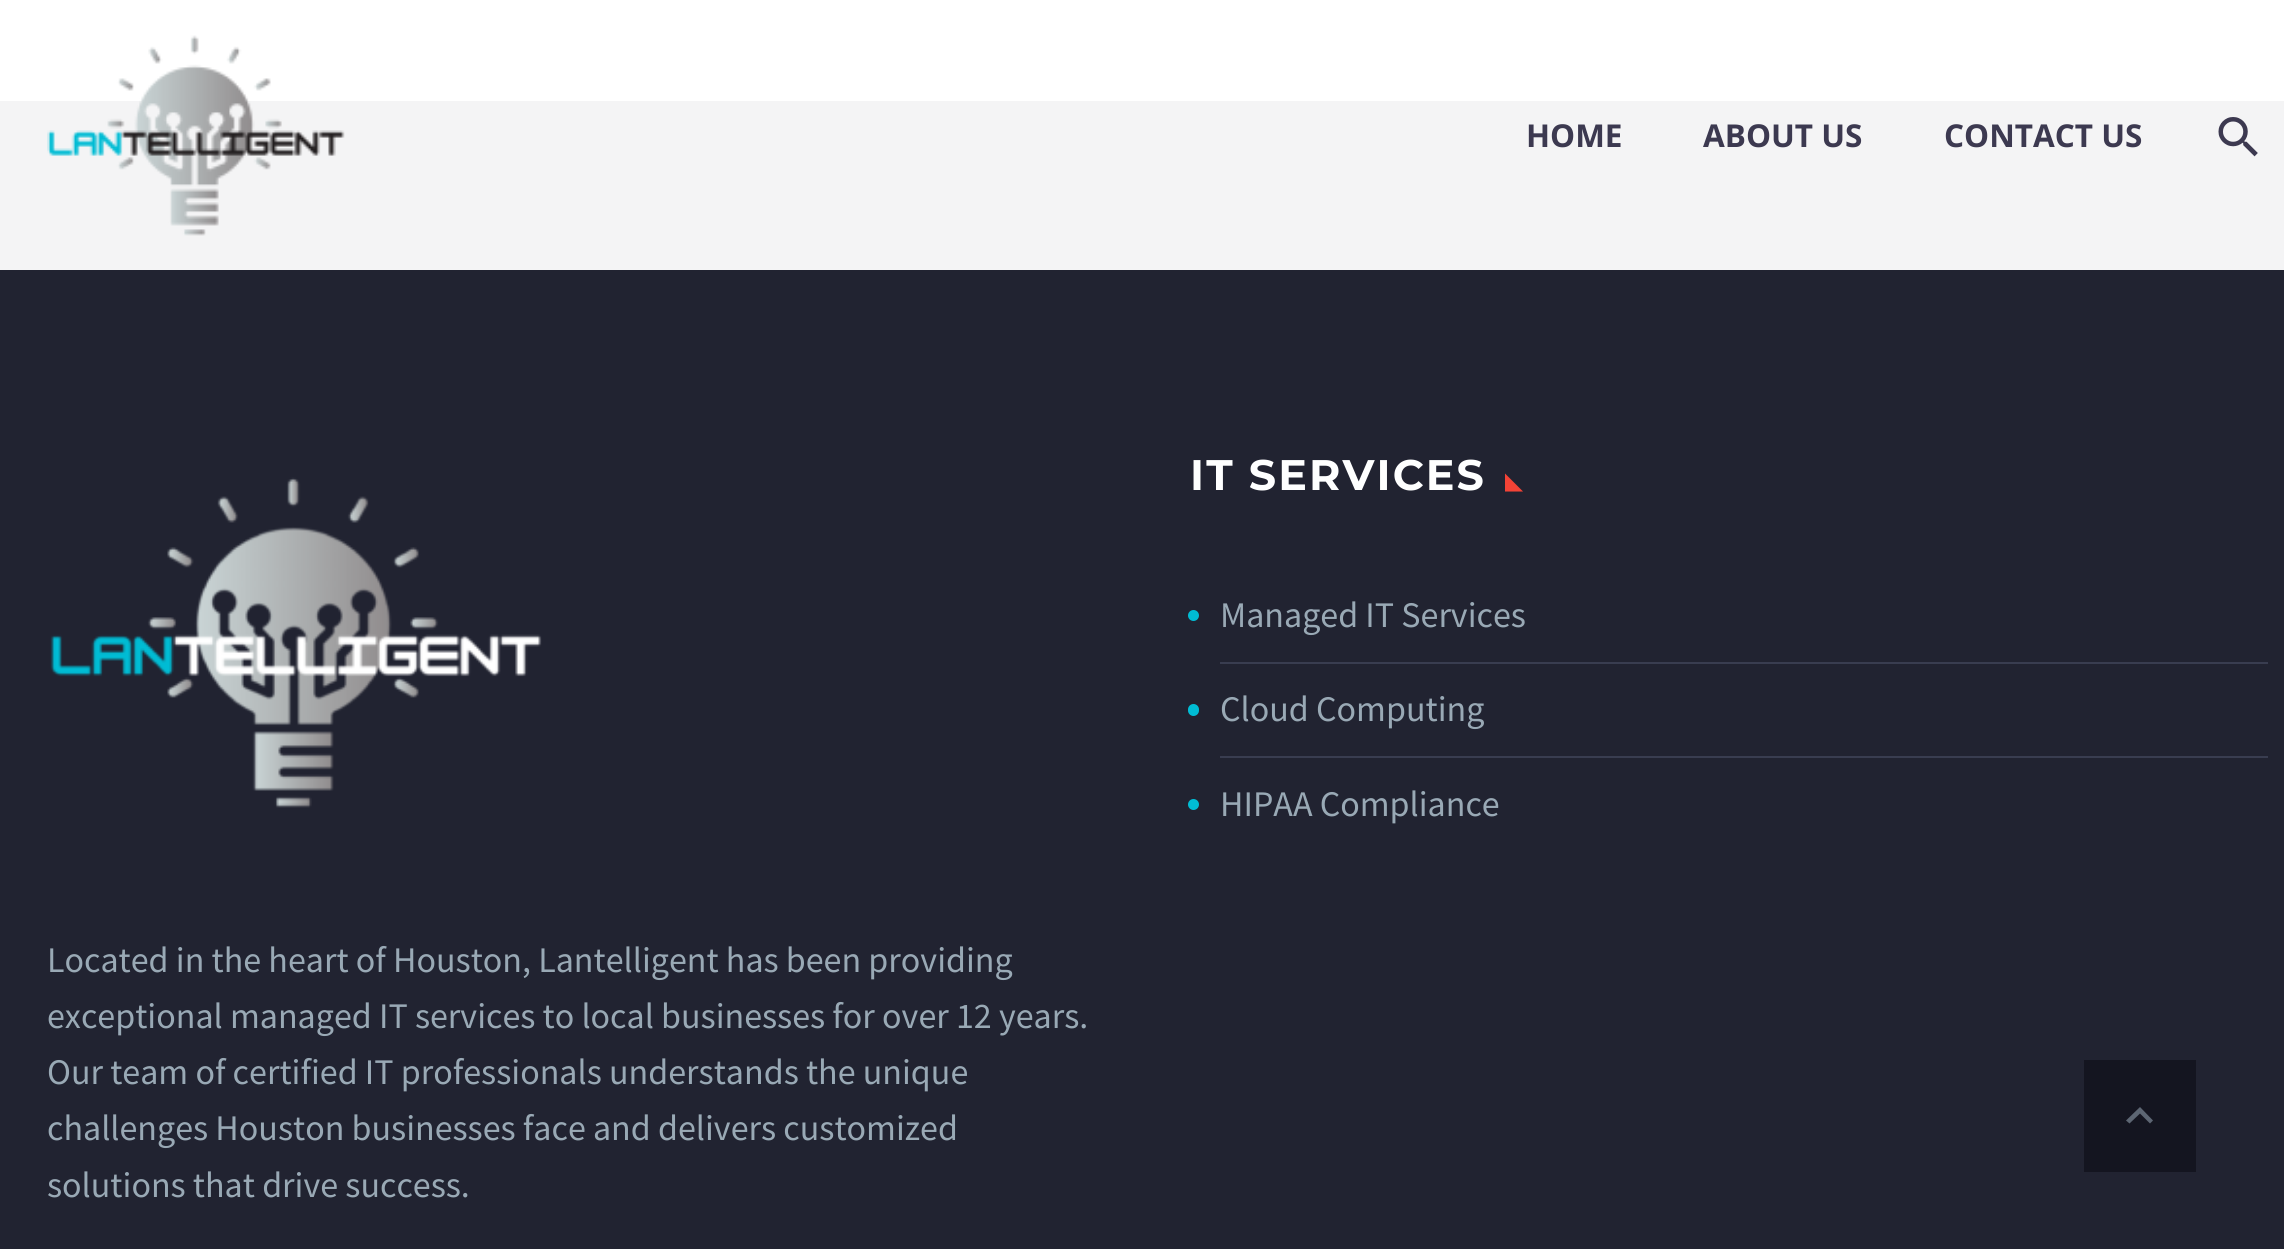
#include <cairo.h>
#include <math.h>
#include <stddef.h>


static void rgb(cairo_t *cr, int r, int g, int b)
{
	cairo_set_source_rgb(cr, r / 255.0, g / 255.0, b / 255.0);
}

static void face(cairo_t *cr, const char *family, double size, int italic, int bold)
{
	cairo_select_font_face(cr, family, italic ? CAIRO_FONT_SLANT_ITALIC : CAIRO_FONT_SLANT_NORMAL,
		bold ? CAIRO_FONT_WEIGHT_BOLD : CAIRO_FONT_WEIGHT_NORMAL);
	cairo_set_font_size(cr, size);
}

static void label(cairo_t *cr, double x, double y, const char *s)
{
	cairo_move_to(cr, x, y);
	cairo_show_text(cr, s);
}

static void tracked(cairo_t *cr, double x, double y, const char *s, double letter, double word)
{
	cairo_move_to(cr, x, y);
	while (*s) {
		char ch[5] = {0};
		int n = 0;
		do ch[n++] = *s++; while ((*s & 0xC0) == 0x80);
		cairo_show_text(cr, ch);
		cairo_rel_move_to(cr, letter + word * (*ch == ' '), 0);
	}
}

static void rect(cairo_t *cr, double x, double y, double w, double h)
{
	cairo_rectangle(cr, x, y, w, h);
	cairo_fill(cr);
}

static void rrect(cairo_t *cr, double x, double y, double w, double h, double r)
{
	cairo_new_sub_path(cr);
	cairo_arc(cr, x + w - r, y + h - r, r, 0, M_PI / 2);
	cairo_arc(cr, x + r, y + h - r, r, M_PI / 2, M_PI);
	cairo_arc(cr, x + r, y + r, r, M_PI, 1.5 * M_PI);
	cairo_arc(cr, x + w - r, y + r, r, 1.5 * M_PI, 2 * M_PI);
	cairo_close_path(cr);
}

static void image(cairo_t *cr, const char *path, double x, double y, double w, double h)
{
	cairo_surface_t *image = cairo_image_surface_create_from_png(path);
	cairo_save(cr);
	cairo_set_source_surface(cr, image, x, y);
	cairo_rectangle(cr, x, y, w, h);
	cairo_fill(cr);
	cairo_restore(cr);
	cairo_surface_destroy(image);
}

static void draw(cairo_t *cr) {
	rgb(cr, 255, 255, 255);
	cairo_paint(cr);
	rgb(cr, 244, 244, 245);
	rect(cr, 0, 101, 2284, 169);
	image(cr, "image0.png", 47, 35, 298, 201);
	face(cr, "Open Sans", 31.5, 0, 1);
	rgb(cr, 60, 57, 80);
	label(cr, 1526, 147, "HOME");
	label(cr, 1703, 147, "ABOUT US");
	label(cr, 1944, 147, "CONTACT US");
	image(cr, "image1.png", 2218, 117, 40, 40);
	rgb(cr, 33, 35, 49);
	rect(cr, 0, 270, 2284, 979);
	face(cr, "Montserrat", 42.75, 0, 1);
	rgb(cr, 254, 255, 255);
	tracked(cr, 1190, 490, "IT SERVICES", 2.1, 0);
	rgb(cr, 244, 67, 54);
	cairo_new_path(cr);
	cairo_move_to(cr, 1505, 473.5);
	cairo_line_to(cr, 1505, 491.5);
	cairo_line_to(cr, 1523, 491.5);
	cairo_close_path(cr);
	cairo_fill(cr);
	rgb(cr, 57, 61, 80);
	rect(cr, 1220, 662, 1048, 2);
	rgb(cr, 0, 188, 212);
	cairo_arc(cr, 1193.5, 615.5, 5.5, 0, 2 * M_PI);
	cairo_fill(cr);
	face(cr, "Source Sans Pro", 36, 0, 0);
	rgb(cr, 153, 169, 181);
	label(cr, 1220, 627, "Managed IT Services");
	rgb(cr, 57, 61, 80);
	rect(cr, 1220, 756, 1048, 2);
	rgb(cr, 0, 188, 212);
	rrect(cr, 1188, 704, 11, 12, 5.5);
	cairo_fill(cr);
	rgb(cr, 153, 169, 181);
	label(cr, 1220, 721, "Cloud Computing");
	rgb(cr, 0, 188, 212);
	cairo_new_path(cr);
	cairo_arc(cr, 1193.5, 804.5, 5.5, 0, 2 * M_PI);
	cairo_fill(cr);
	rgb(cr, 153, 169, 181);
	label(cr, 1220, 816, "HIPAA Compliance");
	image(cr, "image2.png", 50, 477, 492, 331);
	label(cr, 47, 972, "Located in the heart of Houston, Lantelligent has been providing");
	label(cr, 47, 1028, "exceptional managed IT services to local businesses for over 12 years.");
	label(cr, 47, 1084, "Our team of certified IT professionals understands the unique");
	label(cr, 47, 1140, "challenges Houston businesses face and delivers customized");
	label(cr, 47, 1197, "solutions that drive success.");
	rgb(cr, 20, 21, 32);
	rect(cr, 2084, 1060, 112, 112);
	rgb(cr, 93, 102, 115);
	cairo_new_path(cr);
	cairo_move_to(cr, 2129.5, 1123.5);
	cairo_line_to(cr, 2140, 1113.5);
	cairo_line_to(cr, 2150, 1123.5);
	cairo_line_to(cr, 2153, 1120.5);
	cairo_line_to(cr, 2140, 1107);
	cairo_line_to(cr, 2126, 1120.5);
	cairo_close_path(cr);
	cairo_fill(cr);
}

int main(void) {
	cairo_surface_t *surface = cairo_image_surface_create(CAIRO_FORMAT_RGB24, 2284, 1249);
	cairo_t *cr = cairo_create(surface);
	cairo_font_options_t *options = cairo_font_options_create();
	cairo_font_options_set_hint_metrics(options, CAIRO_HINT_METRICS_OFF);
	cairo_font_options_set_hint_style(options, CAIRO_HINT_STYLE_NONE);
	cairo_set_font_options(cr, options);
	cairo_set_miter_limit(cr, 4);
	draw(cr);
	cairo_surface_write_to_png(surface, "render.png");
	cairo_font_options_destroy(options);
	cairo_destroy(cr);
	cairo_surface_destroy(surface);
	return 0;
}
